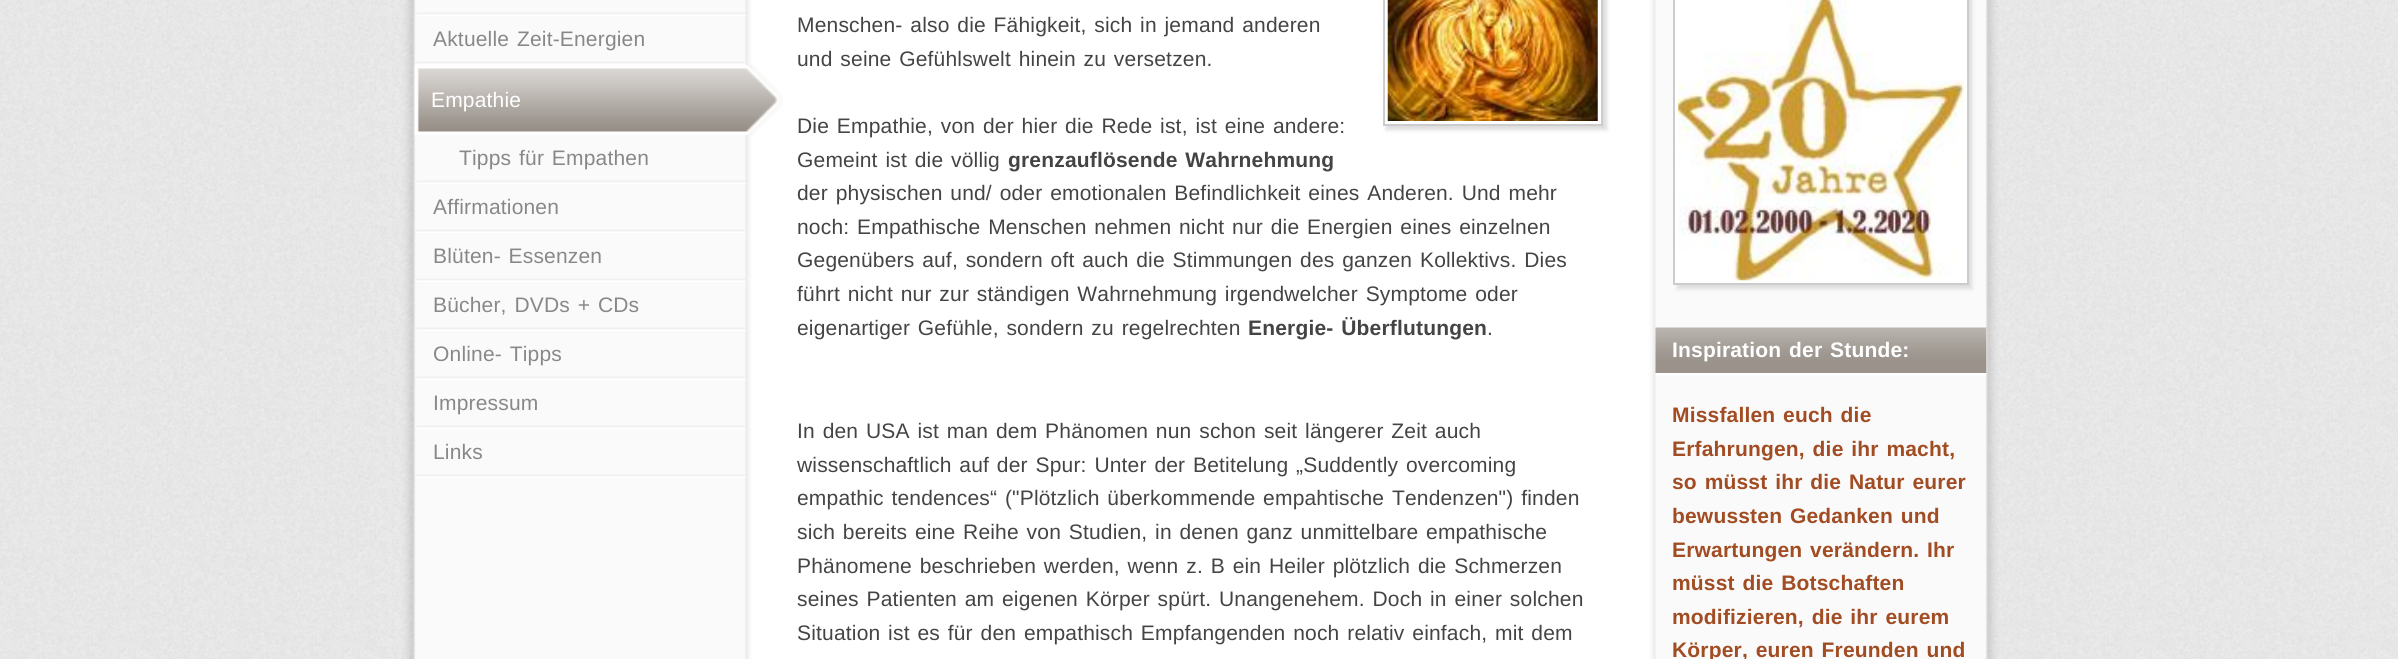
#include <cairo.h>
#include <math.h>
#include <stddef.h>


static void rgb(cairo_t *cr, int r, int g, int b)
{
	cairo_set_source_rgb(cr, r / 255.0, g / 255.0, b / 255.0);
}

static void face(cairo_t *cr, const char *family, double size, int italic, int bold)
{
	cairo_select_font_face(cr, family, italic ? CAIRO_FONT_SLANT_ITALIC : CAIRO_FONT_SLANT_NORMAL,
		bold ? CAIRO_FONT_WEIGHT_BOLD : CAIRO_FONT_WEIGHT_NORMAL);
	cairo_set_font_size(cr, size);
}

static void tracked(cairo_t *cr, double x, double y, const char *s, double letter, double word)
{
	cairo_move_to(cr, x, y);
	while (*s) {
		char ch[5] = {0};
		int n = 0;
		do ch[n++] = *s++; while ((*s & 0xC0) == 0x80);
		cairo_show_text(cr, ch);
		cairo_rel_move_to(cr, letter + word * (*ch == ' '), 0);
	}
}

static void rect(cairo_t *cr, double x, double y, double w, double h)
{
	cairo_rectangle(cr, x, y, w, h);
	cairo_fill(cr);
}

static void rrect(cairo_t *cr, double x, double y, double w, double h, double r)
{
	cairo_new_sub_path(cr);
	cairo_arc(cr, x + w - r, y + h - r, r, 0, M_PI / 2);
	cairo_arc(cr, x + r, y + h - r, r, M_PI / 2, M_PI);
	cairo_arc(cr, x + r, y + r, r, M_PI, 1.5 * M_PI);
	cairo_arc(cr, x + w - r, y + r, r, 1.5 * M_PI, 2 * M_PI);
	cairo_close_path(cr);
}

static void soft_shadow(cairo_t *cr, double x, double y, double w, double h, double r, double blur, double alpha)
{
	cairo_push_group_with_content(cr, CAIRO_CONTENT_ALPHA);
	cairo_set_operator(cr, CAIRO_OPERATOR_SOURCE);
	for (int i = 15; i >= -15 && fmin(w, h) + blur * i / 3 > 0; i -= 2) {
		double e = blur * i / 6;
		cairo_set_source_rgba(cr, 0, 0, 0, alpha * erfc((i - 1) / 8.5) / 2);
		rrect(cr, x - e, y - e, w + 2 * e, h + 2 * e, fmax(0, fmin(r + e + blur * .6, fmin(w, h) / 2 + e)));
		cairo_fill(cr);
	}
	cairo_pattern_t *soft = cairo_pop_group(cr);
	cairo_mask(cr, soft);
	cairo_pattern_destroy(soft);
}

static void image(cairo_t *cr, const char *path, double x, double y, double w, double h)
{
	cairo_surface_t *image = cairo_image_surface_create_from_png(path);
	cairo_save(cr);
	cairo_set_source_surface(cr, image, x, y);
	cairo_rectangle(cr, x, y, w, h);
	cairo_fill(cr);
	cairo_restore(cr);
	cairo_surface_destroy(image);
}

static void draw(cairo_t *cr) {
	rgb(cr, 255, 255, 255);
	cairo_paint(cr);
	image(cr, "image0.png", 0, 0, 2398, 659);
	image(cr, "image1.png", 378, 0, 1645, 659);
	image(cr, "image2.png", 416, 12, 330, 4);
	image(cr, "image2.png", 416, 61, 330, 4);
	face(cr, "Liberation Sans", 21, 0, 0);
	rgb(cr, 136, 136, 136);
	tracked(cr, 433, 46, "Aktuelle Zeit-Energien", 0.18, 1.75);
	image(cr, "image3.png", 414, 65, 369, 70);
	rgb(cr, 255, 255, 255);
	tracked(cr, 431, 107, "Empathie", 0.18, 0);
	image(cr, "image2.png", 416, 180, 330, 4);
	rgb(cr, 136, 136, 136);
	tracked(cr, 459, 165, "Tipps für Empathen", 0.18, 1.75);
	image(cr, "image2.png", 416, 229, 330, 4);
	tracked(cr, 433, 214, "Affirmationen", 0.18, 0);
	image(cr, "image2.png", 416, 278, 330, 4);
	tracked(cr, 433, 263, "Blüten- Essenzen", 0.18, 1.75);
	image(cr, "image2.png", 416, 327, 330, 4);
	tracked(cr, 433, 312, "Bücher, DVDs + CDs", 0.18, 1.75);
	image(cr, "image2.png", 416, 376, 330, 4);
	tracked(cr, 433, 361, "Online- Tipps", 0.18, 1.75);
	image(cr, "image2.png", 416, 425, 330, 4);
	tracked(cr, 433, 410, "Impressum", 0.18, 0);
	image(cr, "image2.png", 416, 474, 330, 4);
	tracked(cr, 433, 459, "Links", 0.18, 0);
	cairo_save(cr);
	cairo_set_fill_rule(cr, CAIRO_FILL_RULE_EVEN_ODD);
	cairo_new_path(cr);
	cairo_move_to(cr, 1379, 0);
	cairo_line_to(cr, 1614, 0);
	cairo_line_to(cr, 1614, 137);
	cairo_line_to(cr, 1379, 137);
	cairo_close_path(cr);
	cairo_move_to(cr, 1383, -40);
	cairo_line_to(cr, 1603, -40);
	cairo_line_to(cr, 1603, 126);
	cairo_line_to(cr, 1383, 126);
	cairo_close_path(cr);
	cairo_clip(cr);
	rgb(cr, 221, 221, 221);
	soft_shadow(cr, 1386, -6, 221, 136, 0, 2, 1);
	cairo_restore(cr);
	cairo_rectangle(cr, 1384, -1, 218, 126);
	rgb(cr, 204, 204, 204);
	cairo_stroke(cr);
	image(cr, "image4.png", 1387, 0, 211, 121);
	rgb(cr, 68, 68, 68);
	tracked(cr, 797, 32, "Menschen- also die Fähigkeit, sich in jemand anderen", 0.18, 1.75);
	tracked(cr, 797, 66, "und seine Gefühlswelt hinein zu versetzen.", 0.18, 1.75);
	tracked(cr, 797, 133, "Die Empathie, von der hier die Rede ist, ist eine andere:", 0.18, 1.75);
	tracked(cr, 797, 167, "Gemeint ist die völlig", 0.18, 1.75);
	face(cr, "Liberation Sans", 21, 0, 1);
	tracked(cr, 1008, 167, "grenzauflösende Wahrnehmung", 0.18, 1.75);
	face(cr, "Liberation Sans", 21, 0, 0);
	tracked(cr, 797, 200, "der physischen und/ oder emotionalen Befindlichkeit eines Anderen. Und mehr", 0.18, 1.75);
	tracked(cr, 797, 234, "noch: Empathische Menschen nehmen nicht nur die Energien eines einzelnen", 0.18, 1.75);
	tracked(cr, 797, 267, "Gegenübers auf, sondern oft auch die Stimmungen des ganzen Kollektivs. Dies", 0.18, 1.75);
	tracked(cr, 797, 301, "führt nicht nur zur ständigen Wahrnehmung irgendwelcher Symptome oder", 0.18, 1.75);
	tracked(cr, 797, 335, "eigenartiger Gefühle, sondern zu regelrechten", 0.18, 1.75);
	face(cr, "Liberation Sans", 21, 0, 1);
	tracked(cr, 1248, 335, "Energie- Überflutungen", 0.18, 1.75);
	face(cr, "Liberation Sans", 21, 0, 0);
	tracked(cr, 1487, 335, ".", 0.18, 0);
	tracked(cr, 797, 438, "In den USA ist man dem Phänomen nun schon seit längerer Zeit auch", 0.18, 1.75);
	tracked(cr, 797, 472, "wissenschaftlich auf der Spur: Unter der Betitelung „Suddently overcoming", 0.18, 1.75);
	tracked(cr, 797, 505, "empathic tendences“ (\"Plötzlich überkommende empahtische Tendenzen\") finden", 0.18, 1.75);
	tracked(cr, 797, 539, "sich bereits eine Reihe von Studien, in denen ganz unmittelbare empathische", 0.18, 1.75);
	tracked(cr, 797, 573, "Phänomene beschrieben werden, wenn z. B ein Heiler plötzlich die Schmerzen", 0.18, 1.75);
	tracked(cr, 797, 606, "seines Patienten am eigenen Körper spürt. Unangenehem. Doch in einer solchen", 0.18, 1.75);
	tracked(cr, 797, 640, "Situation ist es für den empathisch Empfangenden noch relativ einfach, mit dem", 0.18, 1.75);
	rgb(cr, 221, 221, 221);
	soft_shadow(cr, 1677, -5, 295, 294, 0, 2, 1);
	rgb(cr, 255, 255, 255);
	cairo_rectangle(cr, 1674, -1, 294, 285);
	cairo_fill_preserve(cr);
	rgb(cr, 204, 204, 204);
	cairo_stroke(cr);
	image(cr, "image5.png", 1678, 0, 286, 281);
	image(cr, "image6.png", 1655, 327, 332, 46);
	rgb(cr, 255, 255, 255);
	rect(cr, 1656, 373, 330, 2);
	face(cr, "Liberation Sans", 21, 0, 1);
	tracked(cr, 1672, 357, "Inspiration der Stunde:", 0.18, 1.75);
	rgb(cr, 161, 76, 34);
	tracked(cr, 1672, 422, "Missfallen euch die", 0.18, 1.75);
	tracked(cr, 1672, 456, "Erfahrungen, die ihr macht,", 0.18, 1.75);
	tracked(cr, 1672, 489, "so müsst ihr die Natur eurer", 0.18, 1.75);
	tracked(cr, 1672, 523, "bewussten Gedanken und", 0.18, 1.75);
	tracked(cr, 1672, 557, "Erwartungen verändern. Ihr", 0.18, 1.75);
	tracked(cr, 1672, 590, "müsst die Botschaften", 0.18, 1.75);
	tracked(cr, 1672, 624, "modifizieren, die ihr eurem", 0.18, 1.75);
	tracked(cr, 1672, 657, "Körper, euren Freunden und", 0.18, 1.75);
}

int main(void) {
	cairo_surface_t *surface = cairo_image_surface_create(CAIRO_FORMAT_RGB24, 2398, 659);
	cairo_t *cr = cairo_create(surface);
	cairo_font_options_t *options = cairo_font_options_create();
	cairo_font_options_set_hint_metrics(options, CAIRO_HINT_METRICS_OFF);
	cairo_font_options_set_hint_style(options, CAIRO_HINT_STYLE_NONE);
	cairo_set_font_options(cr, options);
	cairo_set_miter_limit(cr, 4);
	draw(cr);
	cairo_surface_write_to_png(surface, "render.png");
	cairo_font_options_destroy(options);
	cairo_destroy(cr);
	cairo_surface_destroy(surface);
	return 0;
}
